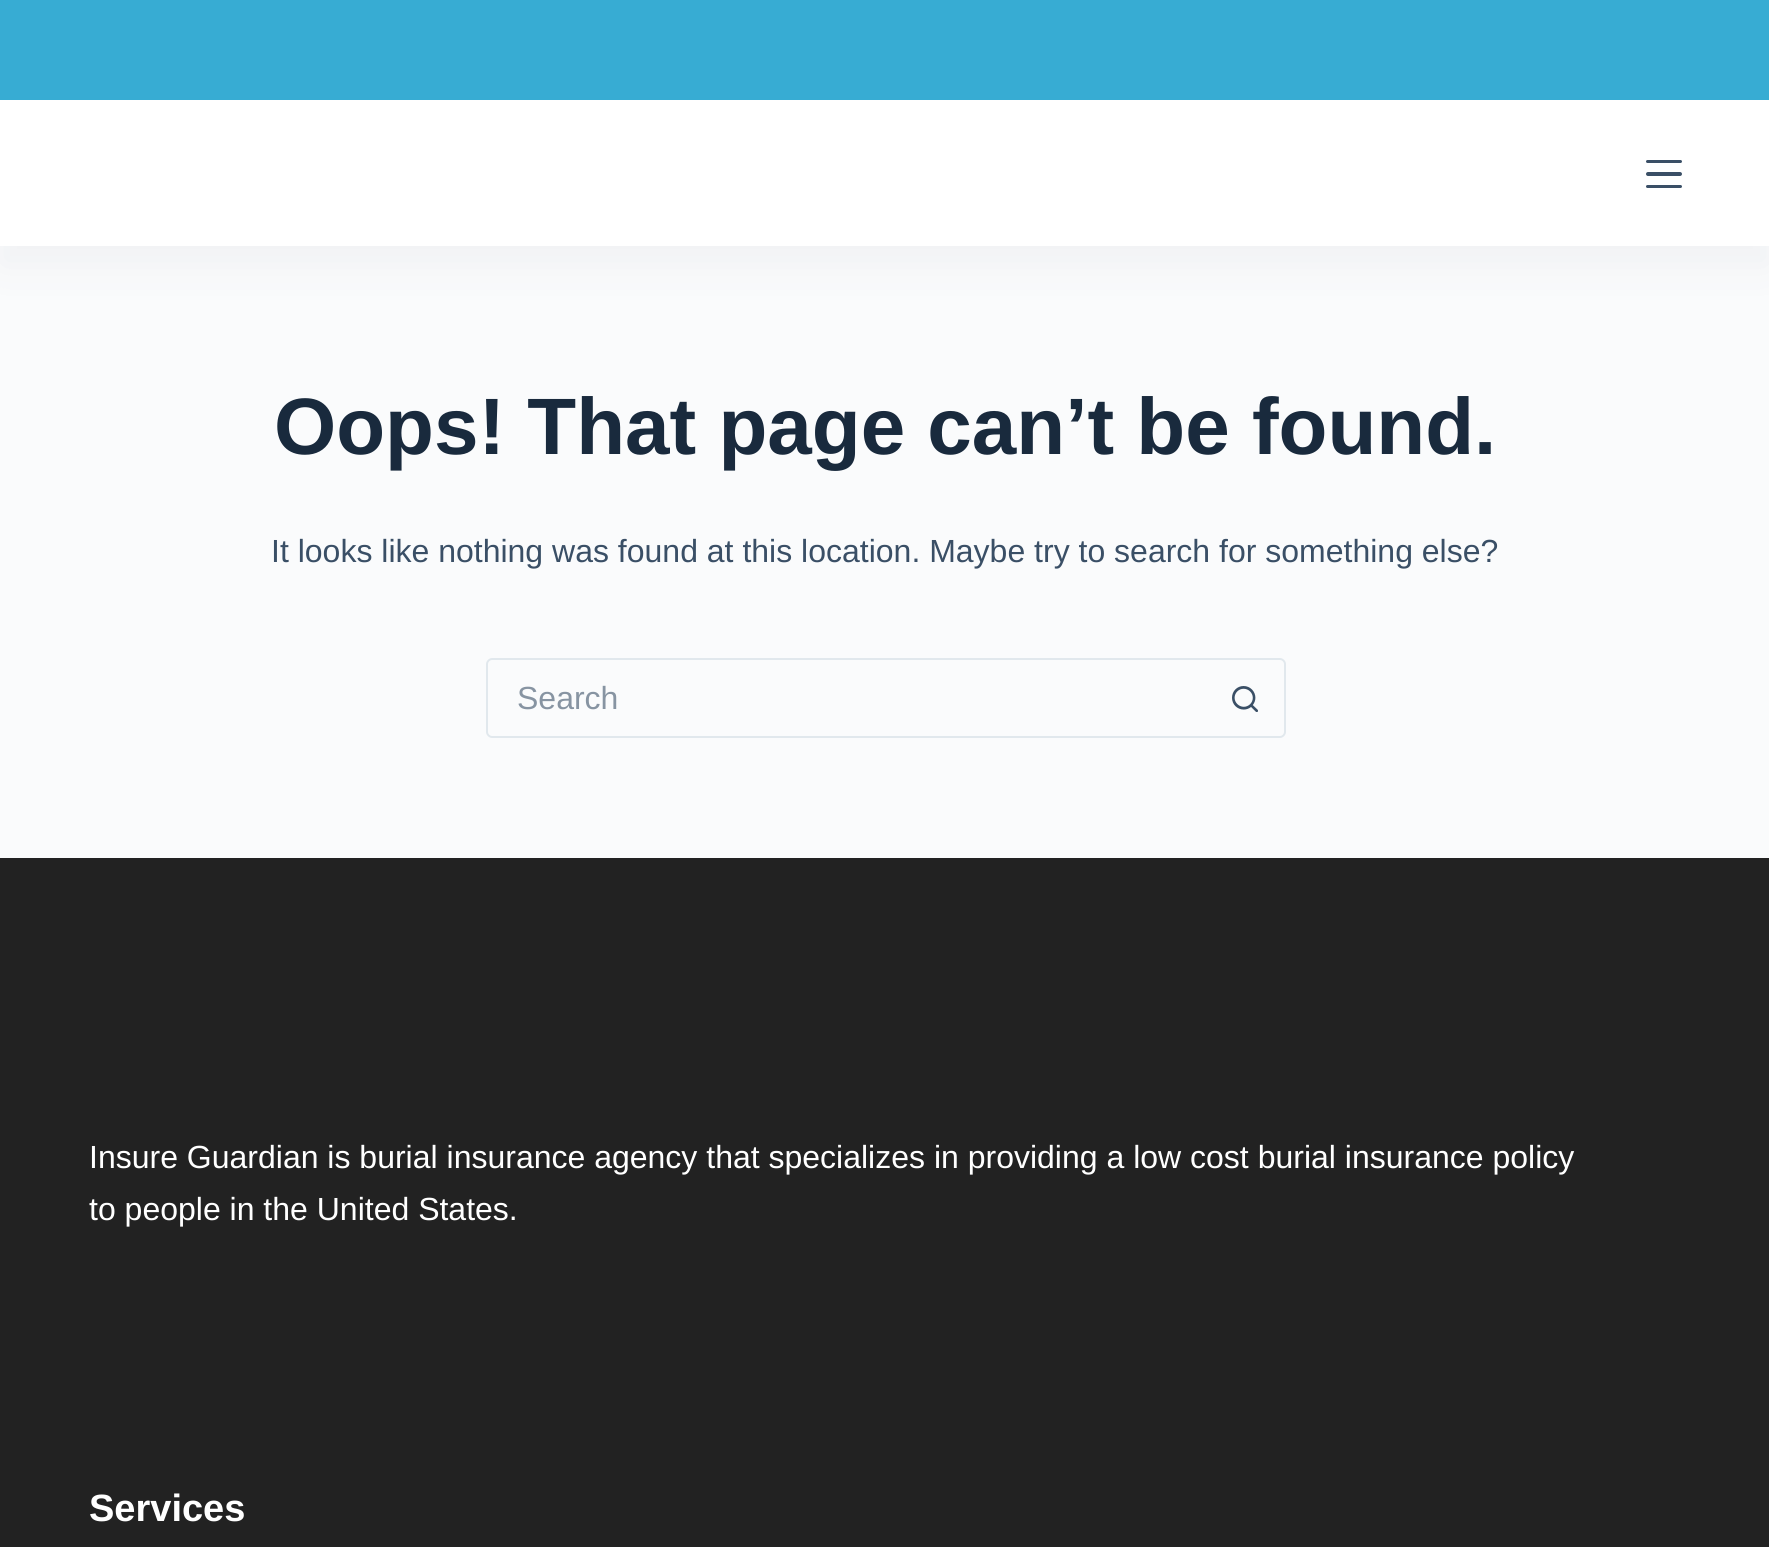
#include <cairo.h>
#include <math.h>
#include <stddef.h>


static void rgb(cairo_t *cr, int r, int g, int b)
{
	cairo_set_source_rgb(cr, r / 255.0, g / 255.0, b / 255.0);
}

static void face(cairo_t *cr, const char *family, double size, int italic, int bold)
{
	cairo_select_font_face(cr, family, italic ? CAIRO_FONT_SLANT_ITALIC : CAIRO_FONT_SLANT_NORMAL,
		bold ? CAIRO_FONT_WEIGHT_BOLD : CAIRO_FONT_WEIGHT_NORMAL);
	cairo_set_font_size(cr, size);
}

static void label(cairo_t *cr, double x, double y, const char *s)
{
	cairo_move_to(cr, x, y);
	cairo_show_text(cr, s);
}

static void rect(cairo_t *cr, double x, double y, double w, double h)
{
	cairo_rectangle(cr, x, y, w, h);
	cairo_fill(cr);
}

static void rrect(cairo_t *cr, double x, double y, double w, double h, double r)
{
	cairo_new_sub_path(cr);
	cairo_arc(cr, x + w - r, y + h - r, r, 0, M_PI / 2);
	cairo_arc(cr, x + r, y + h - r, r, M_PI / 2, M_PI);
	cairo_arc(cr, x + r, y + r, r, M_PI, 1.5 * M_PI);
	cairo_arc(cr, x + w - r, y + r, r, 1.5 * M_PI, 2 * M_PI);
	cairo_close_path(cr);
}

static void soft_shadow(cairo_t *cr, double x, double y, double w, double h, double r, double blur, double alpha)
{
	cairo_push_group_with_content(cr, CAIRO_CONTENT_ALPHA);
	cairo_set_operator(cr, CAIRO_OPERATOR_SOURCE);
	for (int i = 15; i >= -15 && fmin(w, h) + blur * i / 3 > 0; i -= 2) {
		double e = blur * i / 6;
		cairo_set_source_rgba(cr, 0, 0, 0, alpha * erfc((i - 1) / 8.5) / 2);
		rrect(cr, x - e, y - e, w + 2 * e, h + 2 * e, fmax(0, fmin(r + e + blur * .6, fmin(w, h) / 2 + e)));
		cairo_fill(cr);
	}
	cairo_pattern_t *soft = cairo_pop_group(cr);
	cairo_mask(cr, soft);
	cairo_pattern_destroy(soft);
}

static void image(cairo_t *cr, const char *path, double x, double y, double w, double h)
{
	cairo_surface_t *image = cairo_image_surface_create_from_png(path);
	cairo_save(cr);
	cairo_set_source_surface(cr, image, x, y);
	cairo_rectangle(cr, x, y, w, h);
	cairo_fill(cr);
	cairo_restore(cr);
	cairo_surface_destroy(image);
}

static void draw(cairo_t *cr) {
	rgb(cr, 250, 251, 252);
	cairo_paint(cr);
	rgb(cr, 44, 62, 80);
	soft_shadow(cr, 0, 120, 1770, 146, 0, 20, 0.05);
	rgb(cr, 55, 172, 211);
	rect(cr, 0, 0, 1769, 100);
	rgb(cr, 255, 255, 255);
	rect(cr, 0, 100, 1769, 146);
	rgb(cr, 58, 79, 102);
	rrect(cr, 1646, 160, 36, 3, 1.5);
	cairo_fill(cr);
	rrect(cr, 1646, 172, 36, 4, 2);
	cairo_fill(cr);
	rrect(cr, 1646, 185, 36, 3, 1.5);
	cairo_fill(cr);
	face(cr, "Liberation Sans", 80, 0, 1);
	rgb(cr, 25, 42, 61);
	label(cr, 274, 454, "Oops! That page can’t be found.");
	face(cr, "Liberation Sans", 32, 0, 0);
	rgb(cr, 58, 79, 102);
	label(cr, 271, 562, "It looks like nothing was found at this location. Maybe try to search for something else?");
	rgb(cr, 225, 232, 237);
	cairo_set_fill_rule(cr, CAIRO_FILL_RULE_EVEN_ODD);
	cairo_new_path(cr);
	cairo_move_to(cr, 492, 658);
	cairo_line_to(cr, 1206, 658);
	cairo_line_to(cr, 1206, 738);
	cairo_line_to(cr, 492, 738);
	cairo_curve_to(cr, 489, 738, 486, 735, 486, 732);
	cairo_line_to(cr, 486, 664);
	cairo_curve_to(cr, 486, 661, 489, 658, 492, 658);
	cairo_close_path(cr);
	cairo_move_to(cr, 492, 660);
	cairo_line_to(cr, 1206, 660);
	cairo_line_to(cr, 1206, 736);
	cairo_line_to(cr, 492, 736);
	cairo_curve_to(cr, 490, 736, 488, 734, 488, 732);
	cairo_line_to(cr, 488, 664);
	cairo_curve_to(cr, 488, 662, 490, 660, 492, 660);
	cairo_close_path(cr);
	cairo_fill(cr);
	rgb(cr, 135, 148, 162);
	label(cr, 517, 709, "Search");
	rgb(cr, 225, 232, 237);
	cairo_new_path(cr);
	cairo_move_to(cr, 1206, 658);
	cairo_line_to(cr, 1280, 658);
	cairo_curve_to(cr, 1283, 658, 1286, 661, 1286, 664);
	cairo_line_to(cr, 1286, 732);
	cairo_curve_to(cr, 1286, 735, 1283, 738, 1280, 738);
	cairo_line_to(cr, 1206, 738);
	cairo_close_path(cr);
	cairo_move_to(cr, 1206, 660);
	cairo_line_to(cr, 1280, 660);
	cairo_curve_to(cr, 1282, 660, 1284, 662, 1284, 664);
	cairo_line_to(cr, 1284, 732);
	cairo_curve_to(cr, 1284, 734, 1282, 736, 1280, 736);
	cairo_line_to(cr, 1206, 736);
	cairo_close_path(cr);
	cairo_fill(cr);
	image(cr, "image0.png", 1232, 686, 26, 26);
	rgb(cr, 34, 34, 34);
	rect(cr, 0, 858, 1769, 689);
	rgb(cr, 255, 255, 255);
	label(cr, 89, 1168, "Insure Guardian is burial insurance agency that specializes in providing a low cost burial insurance policy");
	label(cr, 89, 1220, "to people in the United States.");
	face(cr, "Liberation Sans", 38, 0, 1);
	label(cr, 89, 1521, "Services");
}

int main(void) {
	cairo_surface_t *surface = cairo_image_surface_create(CAIRO_FORMAT_RGB24, 1769, 1547);
	cairo_t *cr = cairo_create(surface);
	cairo_font_options_t *options = cairo_font_options_create();
	cairo_font_options_set_hint_metrics(options, CAIRO_HINT_METRICS_OFF);
	cairo_font_options_set_hint_style(options, CAIRO_HINT_STYLE_NONE);
	cairo_set_font_options(cr, options);
	cairo_set_miter_limit(cr, 4);
	draw(cr);
	cairo_surface_write_to_png(surface, "render.png");
	cairo_font_options_destroy(options);
	cairo_destroy(cr);
	cairo_surface_destroy(surface);
	return 0;
}
